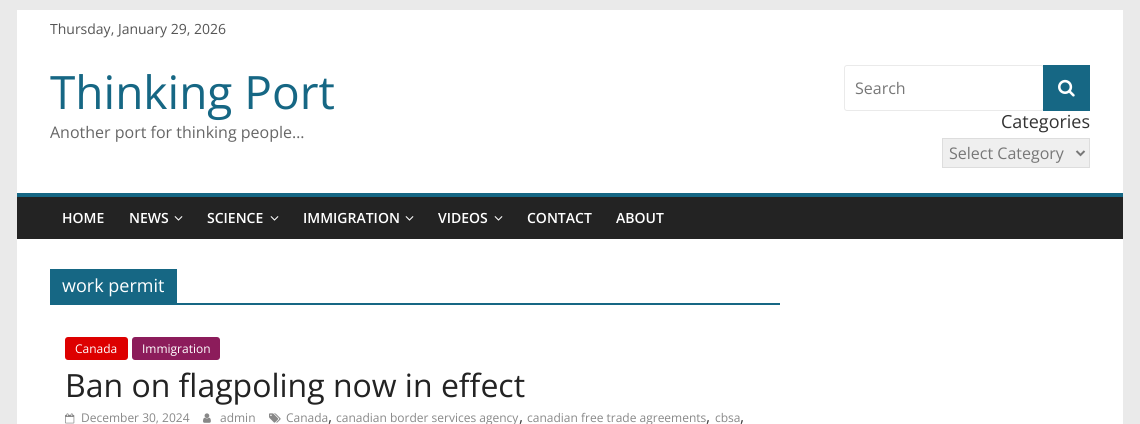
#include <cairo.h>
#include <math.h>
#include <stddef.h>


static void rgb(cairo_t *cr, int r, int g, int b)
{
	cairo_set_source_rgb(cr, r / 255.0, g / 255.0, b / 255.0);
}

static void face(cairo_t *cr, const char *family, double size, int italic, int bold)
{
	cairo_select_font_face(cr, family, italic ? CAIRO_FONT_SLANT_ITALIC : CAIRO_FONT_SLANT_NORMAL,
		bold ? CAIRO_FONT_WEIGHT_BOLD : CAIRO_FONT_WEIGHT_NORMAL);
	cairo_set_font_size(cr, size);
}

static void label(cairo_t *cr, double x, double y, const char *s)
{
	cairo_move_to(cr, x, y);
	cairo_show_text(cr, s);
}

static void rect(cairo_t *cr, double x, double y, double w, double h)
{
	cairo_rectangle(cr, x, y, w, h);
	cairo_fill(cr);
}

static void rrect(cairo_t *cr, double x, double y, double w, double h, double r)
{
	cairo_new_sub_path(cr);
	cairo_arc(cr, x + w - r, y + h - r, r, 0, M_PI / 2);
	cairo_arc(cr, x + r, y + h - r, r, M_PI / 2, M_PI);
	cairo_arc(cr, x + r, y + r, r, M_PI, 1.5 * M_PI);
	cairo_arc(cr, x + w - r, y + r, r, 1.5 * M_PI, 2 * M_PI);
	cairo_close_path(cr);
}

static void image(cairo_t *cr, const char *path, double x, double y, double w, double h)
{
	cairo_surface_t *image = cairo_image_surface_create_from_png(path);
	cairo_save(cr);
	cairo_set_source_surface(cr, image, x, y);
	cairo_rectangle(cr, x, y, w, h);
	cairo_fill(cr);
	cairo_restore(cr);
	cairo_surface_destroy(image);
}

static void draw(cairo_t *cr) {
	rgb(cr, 234, 234, 234);
	cairo_paint(cr);
	rgb(cr, 255, 255, 255);
	rect(cr, 17, 10, 1106, 183);
	face(cr, "Open Sans", 14, 0, 0);
	rgb(cr, 85, 85, 85);
	label(cr, 50, 34, "Thursday, January 29, 2026");
	face(cr, "Open Sans", 46, 0, 0);
	rgb(cr, 22, 103, 132);
	label(cr, 50, 109, "Thinking Port");
	face(cr, "Open Sans", 16, 0, 0);
	rgb(cr, 102, 102, 102);
	label(cr, 50, 138, "Another port for thinking people…");
	rrect(cr, 844.5, 65.5, 199, 45, 2.5);
	rgb(cr, 234, 234, 234);
	cairo_set_line_width(cr, 1);
	cairo_stroke(cr);
	rgb(cr, 119, 119, 119);
	label(cr, 855, 94, "Search");
	rgb(cr, 22, 103, 132);
	rect(cr, 1043, 65, 47, 46);
	image(cr, "image0.png", 1058, 79, 17, 18);
	face(cr, "Open Sans", 18, 0, 0);
	rgb(cr, 51, 51, 51);
	label(cr, 1001, 128, "Categories");
	rgb(cr, 239, 239, 239);
	cairo_rectangle(cr, 942.5, 138.5, 147, 29);
	cairo_fill_preserve(cr);
	rgb(cr, 221, 221, 221);
	cairo_stroke(cr);
	cairo_new_path(cr);
	cairo_move_to(cr, 1076.5, 151);
	cairo_line_to(cr, 1080.5, 155);
	cairo_line_to(cr, 1084.5, 151);
	rgb(cr, 119, 119, 119);
	cairo_set_line_width(cr, 2);
	cairo_stroke(cr);
	face(cr, "Open Sans", 16, 0, 0);
	label(cr, 949, 159, "Select Category");
	rgb(cr, 35, 35, 35);
	rect(cr, 17, 197, 1106, 42);
	rgb(cr, 22, 103, 132);
	rect(cr, 17, 193, 1106, 4);
	face(cr, "Open Sans SemiBold", 14, 0, 0);
	rgb(cr, 255, 255, 255);
	label(cr, 62, 223, "HOME");
	label(cr, 129, 223, "NEWS");
	image(cr, "image1.png", 174, 216, 9, 5);
	label(cr, 207, 223, "SCIENCE");
	image(cr, "image1.png", 270, 216, 9, 5);
	label(cr, 303, 223, "IMMIGRATION");
	image(cr, "image1.png", 405, 216, 9, 5);
	label(cr, 438, 223, "VIDEOS");
	image(cr, "image1.png", 494, 216, 9, 5);
	label(cr, 527, 223, "CONTACT");
	label(cr, 616, 223, "ABOUT");
	rect(cr, 17, 239, 1106, 185);
	rgb(cr, 22, 103, 132);
	rect(cr, 50, 303, 730, 2);
	rect(cr, 50, 269, 127, 34);
	face(cr, "Open Sans", 18, 0, 0);
	rgb(cr, 255, 255, 255);
	label(cr, 62, 292, "work permit");
	rgb(cr, 221, 0, 0);
	rrect(cr, 65, 337, 63, 23, 3);
	cairo_fill(cr);
	face(cr, "Open Sans", 12, 0, 0);
	rgb(cr, 255, 255, 255);
	label(cr, 75, 353, "Canada");
	rgb(cr, 140, 28, 91);
	rrect(cr, 132, 337, 88, 23, 3);
	cairo_fill(cr);
	rgb(cr, 255, 255, 255);
	label(cr, 142, 353, "Immigration");
	face(cr, "Open Sans", 32, 0, 0);
	rgb(cr, 35, 35, 35);
	label(cr, 65, 397, "Ban on flagpoling now in effect");
	image(cr, "image2.png", 65, 413, 10, 11);
	face(cr, "Open Sans", 12, 0, 0);
	rgb(cr, 136, 136, 136);
	label(cr, 81, 422, "December 30, 2024");
	image(cr, "image3.png", 203, 413, 8, 10);
	label(cr, 220, 422, "admin");
	image(cr, "image4.png", 269, 413, 12, 10);
	label(cr, 286, 422, "Canada");
	face(cr, "Open Sans", 16, 0, 0);
	rgb(cr, 68, 68, 68);
	label(cr, 328, 422, ",");
	face(cr, "Open Sans", 12, 0, 0);
	rgb(cr, 136, 136, 136);
	label(cr, 336, 422, "canadian border services agency");
	face(cr, "Open Sans", 16, 0, 0);
	rgb(cr, 68, 68, 68);
	label(cr, 519, 422, ",");
	face(cr, "Open Sans", 12, 0, 0);
	rgb(cr, 136, 136, 136);
	label(cr, 527, 422, "canadian free trade agreements");
	face(cr, "Open Sans", 16, 0, 0);
	rgb(cr, 68, 68, 68);
	label(cr, 706, 422, ",");
	face(cr, "Open Sans", 12, 0, 0);
	rgb(cr, 136, 136, 136);
	label(cr, 715, 422, "cbsa");
	face(cr, "Open Sans", 16, 0, 0);
	rgb(cr, 68, 68, 68);
	label(cr, 740, 422, ",");
}

int main(void) {
	cairo_surface_t *surface = cairo_image_surface_create(CAIRO_FORMAT_RGB24, 1140, 424);
	cairo_t *cr = cairo_create(surface);
	cairo_font_options_t *options = cairo_font_options_create();
	cairo_font_options_set_hint_metrics(options, CAIRO_HINT_METRICS_OFF);
	cairo_font_options_set_hint_style(options, CAIRO_HINT_STYLE_NONE);
	cairo_set_font_options(cr, options);
	cairo_set_miter_limit(cr, 4);
	draw(cr);
	cairo_surface_write_to_png(surface, "render.png");
	cairo_font_options_destroy(options);
	cairo_destroy(cr);
	cairo_surface_destroy(surface);
	return 0;
}
